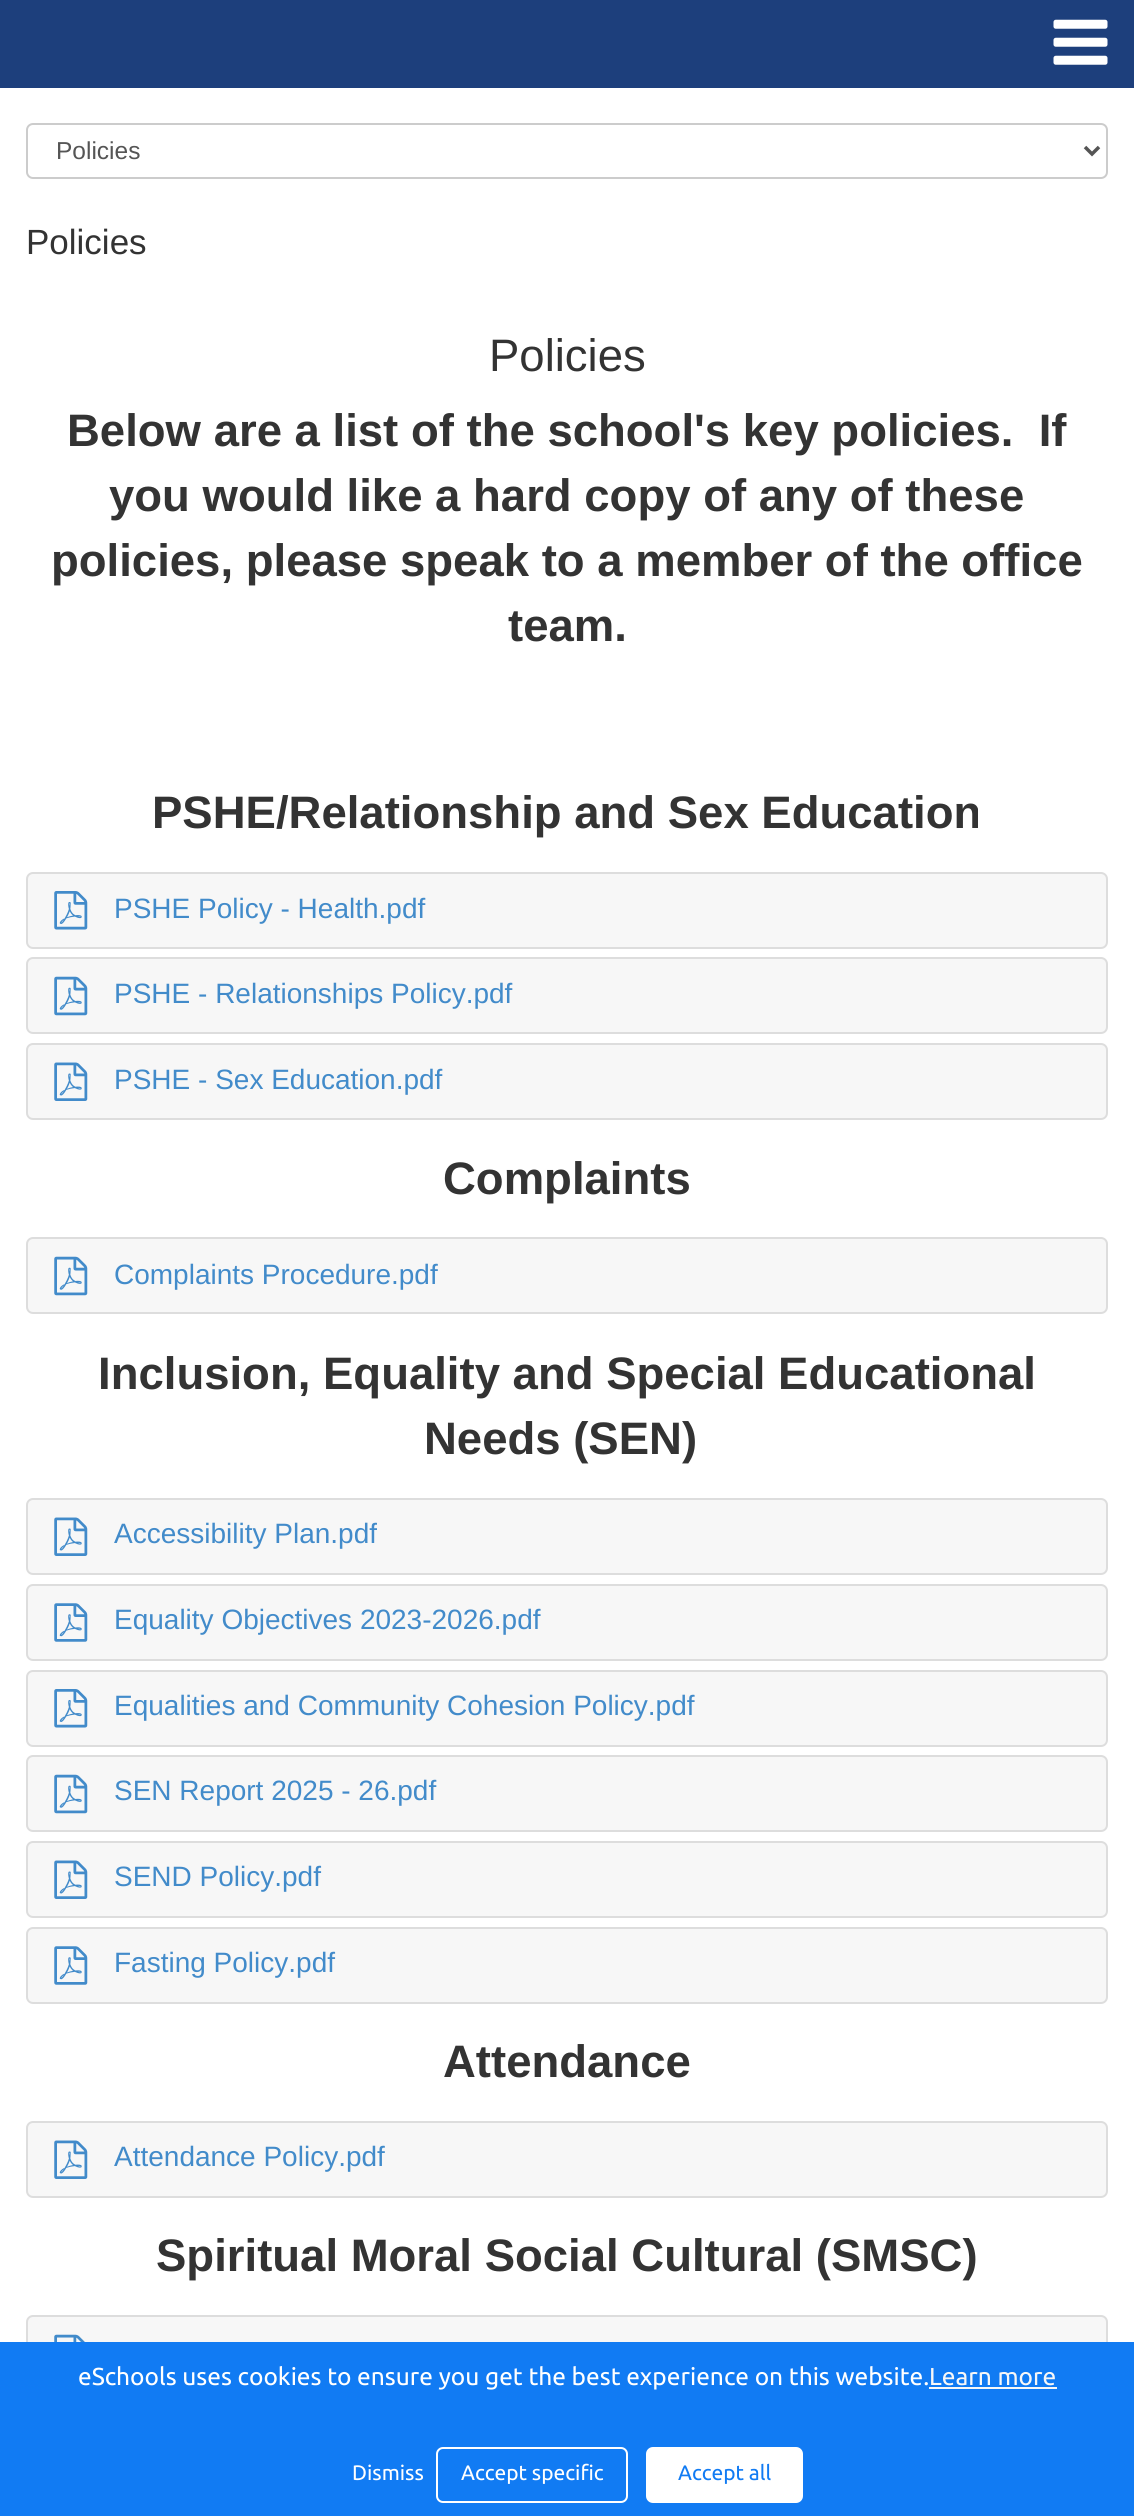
#include <cairo.h>
#include <math.h>
#include <stddef.h>


static void rgb(cairo_t *cr, int r, int g, int b)
{
	cairo_set_source_rgb(cr, r / 255.0, g / 255.0, b / 255.0);
}

static void face(cairo_t *cr, const char *family, double size, int italic, int bold)
{
	cairo_select_font_face(cr, family, italic ? CAIRO_FONT_SLANT_ITALIC : CAIRO_FONT_SLANT_NORMAL,
		bold ? CAIRO_FONT_WEIGHT_BOLD : CAIRO_FONT_WEIGHT_NORMAL);
	cairo_set_font_size(cr, size);
}

static void label(cairo_t *cr, double x, double y, const char *s)
{
	cairo_move_to(cr, x, y);
	cairo_show_text(cr, s);
}

static void rect(cairo_t *cr, double x, double y, double w, double h)
{
	cairo_rectangle(cr, x, y, w, h);
	cairo_fill(cr);
}

static void rrect(cairo_t *cr, double x, double y, double w, double h, double r)
{
	cairo_new_sub_path(cr);
	cairo_arc(cr, x + w - r, y + h - r, r, 0, M_PI / 2);
	cairo_arc(cr, x + r, y + h - r, r, M_PI / 2, M_PI);
	cairo_arc(cr, x + r, y + r, r, M_PI, 1.5 * M_PI);
	cairo_arc(cr, x + w - r, y + r, r, 1.5 * M_PI, 2 * M_PI);
	cairo_close_path(cr);
}

static void image(cairo_t *cr, const char *path, double x, double y, double w, double h)
{
	cairo_surface_t *image = cairo_image_surface_create_from_png(path);
	cairo_save(cr);
	cairo_set_source_surface(cr, image, x, y);
	cairo_rectangle(cr, x, y, w, h);
	cairo_fill(cr);
	cairo_restore(cr);
	cairo_surface_destroy(image);
}

static void draw(cairo_t *cr) {
	rgb(cr, 29, 63, 124);
	cairo_paint(cr);
	image(cr, "image0.png", 1053, 19, 55, 46);
	rgb(cr, 255, 255, 255);
	rect(cr, 0, 88, 1134, 2254);
	rrect(cr, 27, 124, 1080, 54, 6);
	rgb(cr, 204, 204, 204);
	cairo_stroke(cr);
	cairo_new_path(cr);
	cairo_move_to(cr, 1085, 147);
	cairo_line_to(cr, 1092, 154);
	cairo_line_to(cr, 1099, 147);
	rgb(cr, 85, 85, 85);
	cairo_set_line_width(cr, 3.5);
	cairo_stroke(cr);
	face(cr, "Liberation Sans", 24.5, 0, 0);
	label(cr, 56, 159, "Policies");
	face(cr, "Liberation Sans", 35, 0, 0);
	rgb(cr, 51, 51, 51);
	label(cr, 26, 254, "Policies");
	face(cr, "Liberation Sans", 45.5, 0, 0);
	label(cr, 489, 371, "Policies");
	face(cr, "Liberation Sans", 45.5, 0, 1);
	label(cr, 67, 446, "Below are a list of the school's key policies.  If");
	label(cr, 109, 511, "you would like a hard copy of any of these");
	label(cr, 51, 576, "policies, please speak to a member of the office");
	label(cr, 508, 641, "team.");
	label(cr, 152, 828, "PSHE/Relationship and Sex Education");
	rgb(cr, 247, 247, 247);
	rrect(cr, 27, 873, 1080, 75, 6);
	cairo_fill_preserve(cr);
	rgb(cr, 221, 221, 221);
	cairo_set_line_width(cr, 2);
	cairo_stroke(cr);
	image(cr, "image1.png", 54, 891, 34, 39);
	face(cr, "Liberation Sans", 28, 0, 0);
	rgb(cr, 66, 139, 202);
	label(cr, 114, 918, "PSHE Policy - Health.pdf");
	rgb(cr, 247, 247, 247);
	rrect(cr, 27, 958, 1080, 75, 6);
	cairo_fill_preserve(cr);
	rgb(cr, 221, 221, 221);
	cairo_stroke(cr);
	image(cr, "image2.png", 54, 976, 34, 40);
	rgb(cr, 66, 139, 202);
	label(cr, 114, 1003, "PSHE - Relationships Policy.pdf");
	rgb(cr, 247, 247, 247);
	rrect(cr, 27, 1044, 1080, 75, 6);
	cairo_fill_preserve(cr);
	rgb(cr, 221, 221, 221);
	cairo_stroke(cr);
	image(cr, "image3.png", 54, 1062, 34, 39);
	rgb(cr, 66, 139, 202);
	label(cr, 114, 1089, "PSHE - Sex Education.pdf");
	face(cr, "Liberation Sans", 45.5, 0, 1);
	rgb(cr, 51, 51, 51);
	label(cr, 443, 1194, "Complaints");
	rgb(cr, 247, 247, 247);
	rrect(cr, 27, 1238, 1080, 75, 6);
	cairo_fill_preserve(cr);
	rgb(cr, 221, 221, 221);
	cairo_stroke(cr);
	image(cr, "image4.png", 54, 1256, 34, 40);
	face(cr, "Liberation Sans", 28, 0, 0);
	rgb(cr, 66, 139, 202);
	label(cr, 114, 1284, "Complaints Procedure.pdf");
	face(cr, "Liberation Sans", 45.5, 0, 1);
	rgb(cr, 51, 51, 51);
	label(cr, 98, 1389, "Inclusion, Equality and Special Educational");
	label(cr, 424, 1454, "Needs (SEN)");
	rgb(cr, 247, 247, 247);
	rrect(cr, 27, 1499, 1080, 75, 6);
	cairo_fill_preserve(cr);
	rgb(cr, 221, 221, 221);
	cairo_stroke(cr);
	image(cr, "image3.png", 54, 1517, 34, 39);
	face(cr, "Liberation Sans", 28, 0, 0);
	rgb(cr, 66, 139, 202);
	label(cr, 114, 1543, "Accessibility Plan.pdf");
	rgb(cr, 247, 247, 247);
	rrect(cr, 27, 1585, 1080, 75, 6);
	cairo_fill_preserve(cr);
	rgb(cr, 221, 221, 221);
	cairo_stroke(cr);
	image(cr, "image5.png", 54, 1603, 34, 39);
	rgb(cr, 66, 139, 202);
	label(cr, 114, 1629, "Equality Objectives 2023-2026.pdf");
	rgb(cr, 247, 247, 247);
	rrect(cr, 27, 1671, 1080, 75, 6);
	cairo_fill_preserve(cr);
	rgb(cr, 221, 221, 221);
	cairo_stroke(cr);
	image(cr, "image6.png", 54, 1689, 34, 39);
	rgb(cr, 66, 139, 202);
	label(cr, 114, 1715, "Equalities and Community Cohesion Policy.pdf");
	rgb(cr, 247, 247, 247);
	rrect(cr, 27, 1756, 1080, 75, 6);
	cairo_fill_preserve(cr);
	rgb(cr, 221, 221, 221);
	cairo_stroke(cr);
	image(cr, "image7.png", 54, 1774, 34, 40);
	rgb(cr, 66, 139, 202);
	label(cr, 114, 1800, "SEN Report 2025 - 26.pdf");
	rgb(cr, 247, 247, 247);
	rrect(cr, 27, 1842, 1080, 75, 6);
	cairo_fill_preserve(cr);
	rgb(cr, 221, 221, 221);
	cairo_stroke(cr);
	image(cr, "image8.png", 54, 1860, 34, 39);
	rgb(cr, 66, 139, 202);
	label(cr, 114, 1886, "SEND Policy.pdf");
	rgb(cr, 247, 247, 247);
	rrect(cr, 27, 1928, 1080, 75, 6);
	cairo_fill_preserve(cr);
	rgb(cr, 221, 221, 221);
	cairo_stroke(cr);
	image(cr, "image9.png", 54, 1946, 34, 39);
	rgb(cr, 66, 139, 202);
	label(cr, 114, 1972, "Fasting Policy.pdf");
	face(cr, "Liberation Sans", 45.5, 0, 1);
	rgb(cr, 51, 51, 51);
	label(cr, 443, 2077, "Attendance");
	rgb(cr, 247, 247, 247);
	rrect(cr, 27, 2122, 1080, 75, 6);
	cairo_fill_preserve(cr);
	rgb(cr, 221, 221, 221);
	cairo_stroke(cr);
	image(cr, "image3.png", 54, 2140, 34, 39);
	face(cr, "Liberation Sans", 28, 0, 0);
	rgb(cr, 66, 139, 202);
	label(cr, 114, 2166, "Attendance Policy.pdf");
	face(cr, "Liberation Sans", 45.5, 0, 1);
	rgb(cr, 51, 51, 51);
	label(cr, 156, 2271, "Spiritual Moral Social Cultural (SMSC)");
	rgb(cr, 247, 247, 247);
	rrect(cr, 27, 2316, 1080, 75, 6);
	cairo_fill_preserve(cr);
	rgb(cr, 221, 221, 221);
	cairo_stroke(cr);
	image(cr, "image10.png", 54, 2334, 31, 8);
	rgb(cr, 17, 123, 243);
	rect(cr, 0, 2342, 1134, 174);
	face(cr, "Ubuntu", 24.5, 0, 0);
	rgb(cr, 255, 255, 255);
	label(cr, 78, 2385, "eSchools uses cookies to ensure you get the best experience on this website.");
	rgb(cr, 247, 247, 247);
	rect(cr, 929, 2387, 128, 2);
	label(cr, 929, 2385, "Learn more");
	face(cr, "Ubuntu", 21, 0, 0);
	rgb(cr, 255, 255, 255);
	label(cr, 352, 2480, "Dismiss");
	rrect(cr, 437, 2448, 190, 54, 6);
	cairo_stroke(cr);
	label(cr, 461, 2480, "Accept specific");
	rrect(cr, 647, 2448, 155, 54, 6);
	cairo_fill_preserve(cr);
	cairo_stroke(cr);
	rgb(cr, 17, 123, 243);
	label(cr, 678, 2480, "Accept all");
}

int main(void) {
	cairo_surface_t *surface = cairo_image_surface_create(CAIRO_FORMAT_RGB24, 1134, 2516);
	cairo_t *cr = cairo_create(surface);
	cairo_font_options_t *options = cairo_font_options_create();
	cairo_font_options_set_hint_metrics(options, CAIRO_HINT_METRICS_OFF);
	cairo_font_options_set_hint_style(options, CAIRO_HINT_STYLE_NONE);
	cairo_set_font_options(cr, options);
	cairo_set_miter_limit(cr, 4);
	draw(cr);
	cairo_surface_write_to_png(surface, "render.png");
	cairo_font_options_destroy(options);
	cairo_destroy(cr);
	cairo_surface_destroy(surface);
	return 0;
}
